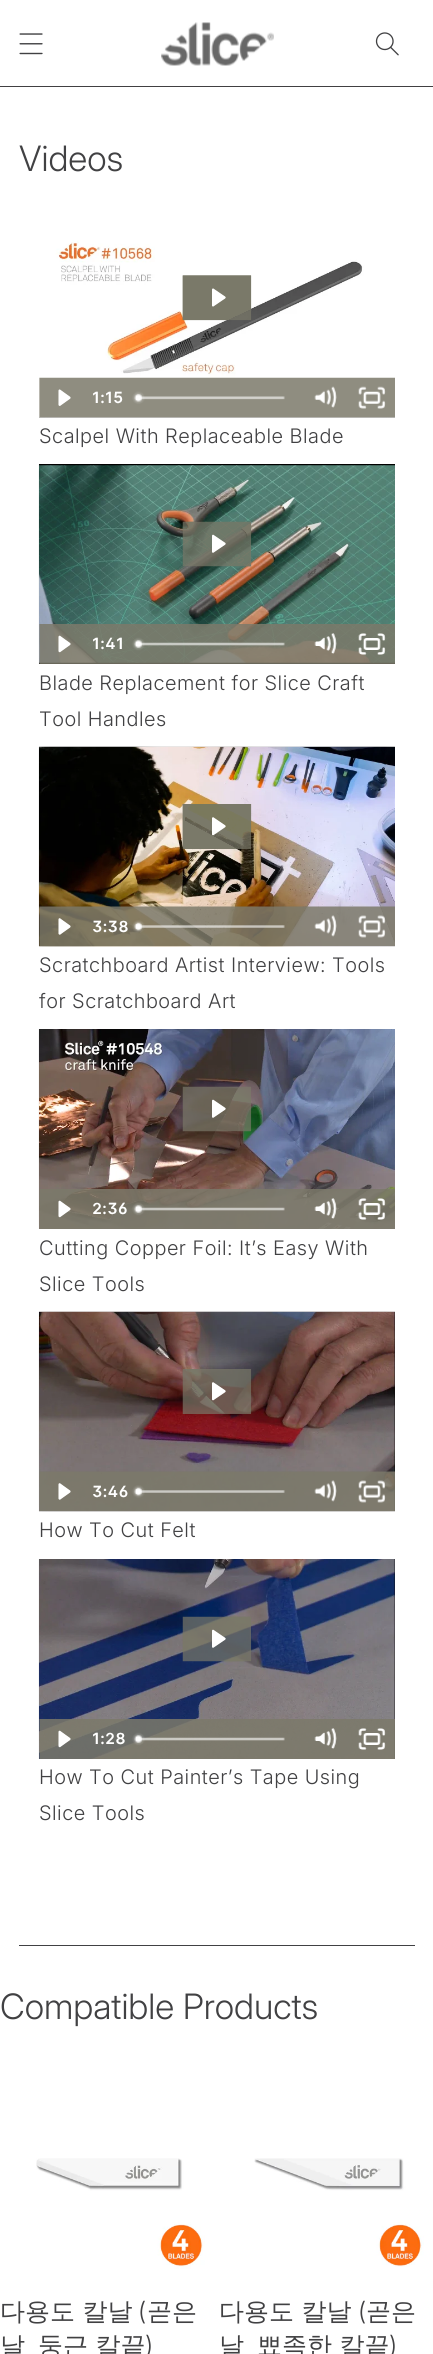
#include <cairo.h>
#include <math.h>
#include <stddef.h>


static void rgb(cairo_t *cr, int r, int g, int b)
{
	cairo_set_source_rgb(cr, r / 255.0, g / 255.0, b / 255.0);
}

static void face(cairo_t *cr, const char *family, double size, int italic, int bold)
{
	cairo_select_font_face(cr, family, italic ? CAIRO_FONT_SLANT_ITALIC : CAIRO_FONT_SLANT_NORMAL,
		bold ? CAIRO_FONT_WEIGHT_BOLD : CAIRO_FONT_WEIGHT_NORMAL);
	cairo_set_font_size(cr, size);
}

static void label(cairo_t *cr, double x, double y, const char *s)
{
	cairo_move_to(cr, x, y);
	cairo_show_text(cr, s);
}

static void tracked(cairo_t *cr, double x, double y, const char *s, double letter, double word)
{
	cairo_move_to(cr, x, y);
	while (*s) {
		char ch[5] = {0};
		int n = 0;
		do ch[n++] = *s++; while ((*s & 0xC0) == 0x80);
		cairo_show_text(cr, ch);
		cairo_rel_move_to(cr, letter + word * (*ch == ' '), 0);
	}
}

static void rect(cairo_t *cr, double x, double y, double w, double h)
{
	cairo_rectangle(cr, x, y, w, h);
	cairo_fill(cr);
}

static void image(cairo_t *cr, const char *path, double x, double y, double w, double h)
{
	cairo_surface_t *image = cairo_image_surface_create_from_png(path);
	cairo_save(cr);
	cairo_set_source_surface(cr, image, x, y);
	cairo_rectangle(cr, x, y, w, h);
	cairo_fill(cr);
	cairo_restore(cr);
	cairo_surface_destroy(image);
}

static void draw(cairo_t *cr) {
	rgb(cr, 255, 255, 255);
	cairo_paint(cr);
	rgb(cr, 65, 64, 66);
	rect(cr, 0, 86, 433, 1);
	image(cr, "image0.png", 19, 33, 24, 22);
	image(cr, "image1.png", 161, 22, 113, 44);
	image(cr, "image2.png", 375, 32, 24, 24);
	face(cr, "Inter Light", 35, 0, 0);
	rgb(cr, 65, 65, 67);
	label(cr, 19, 171, "Videos");
	image(cr, "image3.png", 39, 240, 356, 178);
	face(cr, "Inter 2 Light", 20, 0, 0);
	tracked(cr, 39, 443, "Scalpel With Replaceable Blade", 0.5, 0);
	image(cr, "image4.png", 38, 464, 357, 200);
	tracked(cr, 39, 690, "Blade Replacement for Slice Craft", 0.5, 0);
	tracked(cr, 39, 726, "Tool Handles", 0.5, 0);
	image(cr, "image5.png", 38, 746, 357, 201);
	tracked(cr, 39, 972, "Scratchboard Artist Interview: Tools", 0.5, 0);
	tracked(cr, 39, 1008, "for Scratchboard Art", 0.5, 0);
	image(cr, "image6.png", 38, 1029, 357, 200);
	tracked(cr, 39, 1255, "Cutting Copper Foil: It’s Easy With", 0.5, 0);
	tracked(cr, 39, 1291, "Slice Tools", 0.5, 0);
	image(cr, "image7.png", 38, 1311, 357, 201);
	tracked(cr, 39, 1537, "How To Cut Felt", 0.5, 0);
	image(cr, "image8.png", 38, 1559, 357, 200);
	tracked(cr, 39, 1784, "How To Cut Painter’s Tape Using", 0.5, 0);
	tracked(cr, 39, 1820, "Slice Tools", 0.5, 0);
	rect(cr, 19, 1945, 396, 1);
	face(cr, "Inter Light", 35, 0, 0);
	label(cr, 0, 2019, "Compatible Products");
	image(cr, "image9.png", 36, 2158, 169, 111);
	face(cr, "WenQuanYi Zen Hei Medium", 25, 0, 0);
	label(cr, 0, 2320, "다용도 칼날");
	face(cr, "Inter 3 Light", 25, 0, 0);
	label(cr, 138, 2320, "(");
	face(cr, "WenQuanYi Zen Hei Medium", 25, 0, 0);
	label(cr, 147, 2320, "곧은");
	label(cr, 0, 2354, "날");
	label(cr, 38, 2354, "둥근 칼끝");
	face(cr, "Inter 3 Light", 25, 0, 0);
	label(cr, 145, 2354, ")");
	image(cr, "image10.png", 254, 2158, 170, 109);
	face(cr, "WenQuanYi Zen Hei Medium", 25, 0, 0);
	label(cr, 219, 2320, "다용도 칼날");
	face(cr, "Inter 3 Light", 25, 0, 0);
	label(cr, 358, 2320, "(");
	face(cr, "WenQuanYi Zen Hei Medium", 25, 0, 0);
	label(cr, 366, 2320, "곧은");
	label(cr, 219, 2354, "날");
	label(cr, 257, 2354, "뾰족한 칼끝");
	face(cr, "Inter 3 Light", 25, 0, 0);
	label(cr, 389, 2354, ")");
}

int main(void) {
	cairo_surface_t *surface = cairo_image_surface_create(CAIRO_FORMAT_RGB24, 433, 2354);
	cairo_t *cr = cairo_create(surface);
	cairo_font_options_t *options = cairo_font_options_create();
	cairo_font_options_set_hint_metrics(options, CAIRO_HINT_METRICS_OFF);
	cairo_font_options_set_hint_style(options, CAIRO_HINT_STYLE_NONE);
	cairo_set_font_options(cr, options);
	cairo_set_miter_limit(cr, 4);
	draw(cr);
	cairo_surface_write_to_png(surface, "render.png");
	cairo_font_options_destroy(options);
	cairo_destroy(cr);
	cairo_surface_destroy(surface);
	return 0;
}
